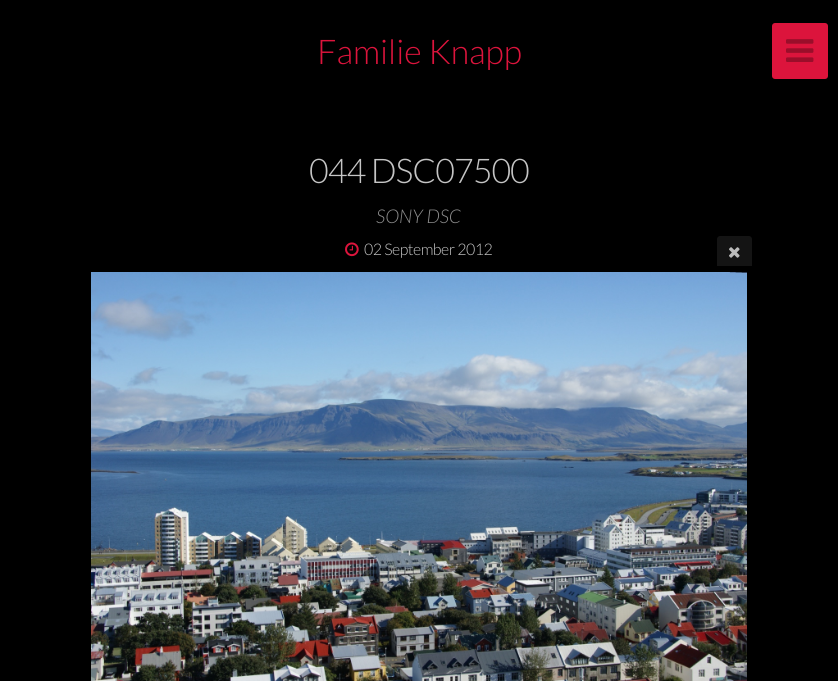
#include <cairo.h>
#include <math.h>
#include <stddef.h>


static void rgb(cairo_t *cr, int r, int g, int b)
{
	cairo_set_source_rgb(cr, r / 255.0, g / 255.0, b / 255.0);
}

static void face(cairo_t *cr, const char *family, double size, int italic, int bold)
{
	cairo_select_font_face(cr, family, italic ? CAIRO_FONT_SLANT_ITALIC : CAIRO_FONT_SLANT_NORMAL,
		bold ? CAIRO_FONT_WEIGHT_BOLD : CAIRO_FONT_WEIGHT_NORMAL);
	cairo_set_font_size(cr, size);
}

static void label(cairo_t *cr, double x, double y, const char *s)
{
	cairo_move_to(cr, x, y);
	cairo_show_text(cr, s);
}

static void tracked(cairo_t *cr, double x, double y, const char *s, double letter, double word)
{
	cairo_move_to(cr, x, y);
	while (*s) {
		char ch[5] = {0};
		int n = 0;
		do ch[n++] = *s++; while ((*s & 0xC0) == 0x80);
		cairo_show_text(cr, ch);
		cairo_rel_move_to(cr, letter + word * (*ch == ' '), 0);
	}
}

static void rrect(cairo_t *cr, double x, double y, double w, double h, double r)
{
	cairo_new_sub_path(cr);
	cairo_arc(cr, x + w - r, y + h - r, r, 0, M_PI / 2);
	cairo_arc(cr, x + r, y + h - r, r, M_PI / 2, M_PI);
	cairo_arc(cr, x + r, y + r, r, M_PI, 1.5 * M_PI);
	cairo_arc(cr, x + w - r, y + r, r, 1.5 * M_PI, 2 * M_PI);
	cairo_close_path(cr);
}

static void image(cairo_t *cr, const char *path, double x, double y, double w, double h)
{
	cairo_surface_t *image = cairo_image_surface_create_from_png(path);
	cairo_save(cr);
	cairo_set_source_surface(cr, image, x, y);
	cairo_rectangle(cr, x, y, w, h);
	cairo_fill(cr);
	cairo_restore(cr);
	cairo_surface_destroy(image);
}

static void draw(cairo_t *cr) {
	rgb(cr, 0, 0, 0);
	cairo_paint(cr);
	face(cr, "Lato Light", 34, 0, 0);
	rgb(cr, 220, 20, 60);
	label(cr, 317, 64, "Familie Knapp");
	rgb(cr, 197, 197, 197);
	tracked(cr, 309, 183, "044 DSC07500", -1, 0);
	face(cr, "Lato Light", 19, 1, 0);
	rgb(cr, 140, 140, 140);
	label(cr, 376, 223, "SONY DSC");
	image(cr, "image0.png", 345, 242, 14, 15);
	face(cr, "Lato Light", 16, 0, 0);
	rgb(cr, 197, 197, 197);
	tracked(cr, 364, 255, "02 September 2012", -0.5, 0);
	rgb(cr, 20, 20, 20);
	cairo_new_path(cr);
	cairo_move_to(cr, 720, 236);
	cairo_line_to(cr, 749, 236);
	cairo_curve_to(cr, 750.5, 236, 752, 237.5, 752, 239);
	cairo_line_to(cr, 752, 266);
	cairo_line_to(cr, 717, 266);
	cairo_line_to(cr, 717, 239);
	cairo_curve_to(cr, 717, 237.5, 718.5, 236, 720, 236);
	cairo_close_path(cr);
	cairo_fill(cr);
	image(cr, "image1.png", 729, 247, 11, 11);
	image(cr, "image2.png", 91, 272, 656, 409);
	rgb(cr, 220, 20, 60);
	rrect(cr, 772, 23, 56, 56, 3);
	cairo_fill(cr);
	image(cr, "image3.png", 786, 39, 28, 23);
}

int main(void) {
	cairo_surface_t *surface = cairo_image_surface_create(CAIRO_FORMAT_RGB24, 838, 681);
	cairo_t *cr = cairo_create(surface);
	cairo_font_options_t *options = cairo_font_options_create();
	cairo_font_options_set_hint_metrics(options, CAIRO_HINT_METRICS_OFF);
	cairo_font_options_set_hint_style(options, CAIRO_HINT_STYLE_NONE);
	cairo_set_font_options(cr, options);
	cairo_set_miter_limit(cr, 4);
	draw(cr);
	cairo_surface_write_to_png(surface, "render.png");
	cairo_font_options_destroy(options);
	cairo_destroy(cr);
	cairo_surface_destroy(surface);
	return 0;
}
